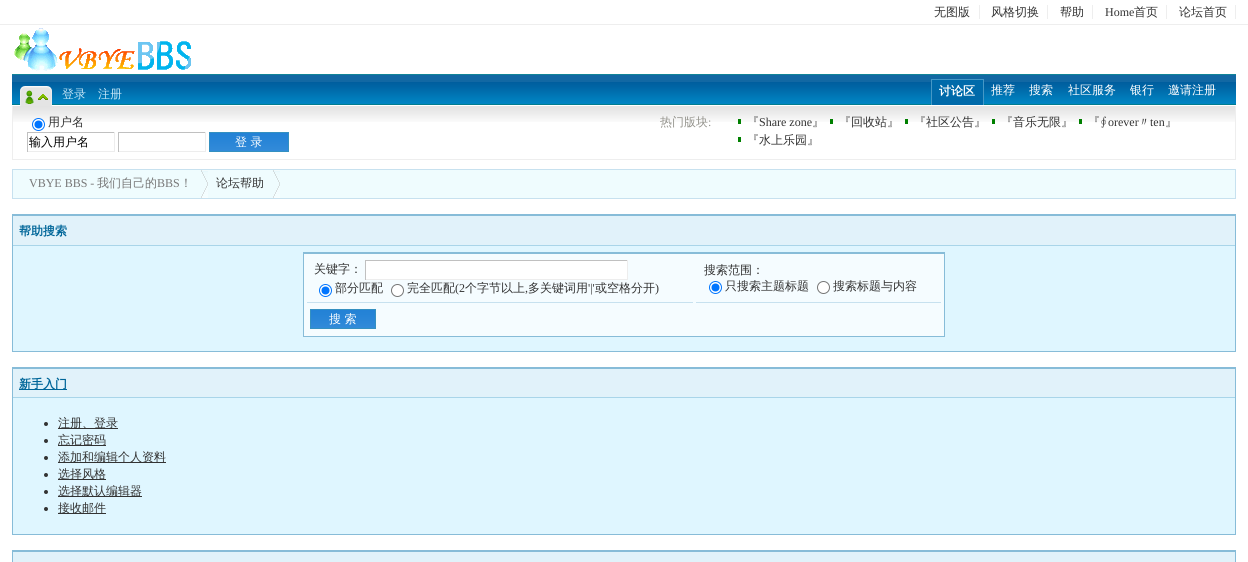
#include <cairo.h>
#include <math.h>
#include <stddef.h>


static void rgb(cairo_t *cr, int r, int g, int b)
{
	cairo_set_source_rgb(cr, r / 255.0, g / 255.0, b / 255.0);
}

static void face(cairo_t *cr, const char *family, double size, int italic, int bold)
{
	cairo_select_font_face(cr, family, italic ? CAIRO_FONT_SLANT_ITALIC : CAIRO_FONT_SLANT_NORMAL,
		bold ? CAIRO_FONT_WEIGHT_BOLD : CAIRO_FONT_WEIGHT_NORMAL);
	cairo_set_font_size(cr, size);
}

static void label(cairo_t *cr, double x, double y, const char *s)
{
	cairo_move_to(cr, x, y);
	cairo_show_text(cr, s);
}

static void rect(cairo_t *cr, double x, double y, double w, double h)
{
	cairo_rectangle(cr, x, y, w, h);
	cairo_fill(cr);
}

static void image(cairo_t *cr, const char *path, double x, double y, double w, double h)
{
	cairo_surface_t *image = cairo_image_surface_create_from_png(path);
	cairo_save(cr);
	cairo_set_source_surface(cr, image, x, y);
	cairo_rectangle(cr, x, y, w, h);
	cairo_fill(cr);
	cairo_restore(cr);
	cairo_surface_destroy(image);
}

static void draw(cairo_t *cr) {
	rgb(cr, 255, 255, 255);
	cairo_paint(cr);
	rgb(cr, 238, 238, 238);
	rect(cr, 0, 24, 1248, 1);
	face(cr, "WenQuanYi Zen Hei Medium", 12, 0, 0);
	rgb(cr, 51, 51, 51);
	label(cr, 934, 16, "无图版");
	rgb(cr, 238, 238, 238);
	rect(cr, 979, 5, 1, 14);
	rgb(cr, 51, 51, 51);
	label(cr, 991, 16, "风格切换");
	rgb(cr, 238, 238, 238);
	rect(cr, 1047, 5, 1, 14);
	rgb(cr, 51, 51, 51);
	label(cr, 1060, 16, "帮助");
	rgb(cr, 238, 238, 238);
	rect(cr, 1092, 5, 1, 14);
	face(cr, "Liberation Serif", 12, 0, 0);
	rgb(cr, 51, 51, 51);
	label(cr, 1105, 16, "Home");
	face(cr, "WenQuanYi Zen Hei Medium", 12, 0, 0);
	label(cr, 1134, 16, "首页");
	rgb(cr, 238, 238, 238);
	rect(cr, 1166, 5, 1, 14);
	rgb(cr, 51, 51, 51);
	label(cr, 1179, 16, "论坛首页");
	rgb(cr, 238, 238, 238);
	rect(cr, 1235, 5, 1, 14);
	image(cr, "image0.png", 14, 28, 177, 43);
	image(cr, "image1.png", 12, 74, 1224, 31);
	image(cr, "image2.png", 20, 86, 32, 20);
	rgb(cr, 195, 228, 245);
	label(cr, 62, 98, "登录");
	label(cr, 98, 98, "注册");
	rgb(cr, 0, 106, 170);
	rect(cr, 932, 80, 51, 25);
	rgb(cr, 69, 152, 198);
	rect(cr, 931, 79, 53, 1);
	rect(cr, 983, 79, 1, 26);
	rect(cr, 931, 79, 1, 26);
	face(cr, "WenQuanYi Zen Hei", 12, 0, 1);
	rgb(cr, 255, 255, 255);
	label(cr, 939, 95, "讨论区");
	face(cr, "WenQuanYi Zen Hei Medium", 12, 0, 0);
	label(cr, 991, 94, "推荐");
	label(cr, 1029, 94, "搜索");
	label(cr, 1068, 94, "社区服务");
	label(cr, 1130, 94, "银行");
	label(cr, 1168, 94, "邀请注册");
	image(cr, "image3.png", 13, 106, 1222, 16);
	rgb(cr, 238, 238, 238);
	rect(cr, 1235, 106, 1, 54);
	rect(cr, 12, 159, 1224, 1);
	rect(cr, 12, 106, 1, 54);
	rgb(cr, 255, 255, 255);
	cairo_arc(cr, 38.5, 124.5, 6, 0, 2 * M_PI);
	cairo_fill_preserve(cr);
	rgb(cr, 0, 117, 255);
	cairo_set_line_width(cr, 1);
	cairo_stroke(cr);
	cairo_arc(cr, 38.5, 124.5, 4, 0, 2 * M_PI);
	cairo_fill(cr);
	rgb(cr, 51, 51, 51);
	label(cr, 48, 126, "用户名");
	rgb(cr, 192, 192, 192);
	rect(cr, 27, 132, 88, 1);
	rgb(cr, 237, 237, 237);
	rect(cr, 114, 132, 1, 20);
	rect(cr, 27, 151, 88, 1);
	rgb(cr, 192, 192, 192);
	rect(cr, 27, 132, 1, 20);
	rgb(cr, 0, 0, 0);
	label(cr, 29, 146, "输入用户名");
	rgb(cr, 192, 192, 192);
	rect(cr, 118, 132, 88, 1);
	rgb(cr, 237, 237, 237);
	rect(cr, 205, 132, 1, 20);
	rect(cr, 118, 151, 88, 1);
	rgb(cr, 192, 192, 192);
	rect(cr, 118, 132, 1, 20);
	image(cr, "image4.png", 210, 133, 78, 18);
	cairo_rectangle(cr, 209.5, 132.5, 79, 19);
	rgb(cr, 52, 144, 193);
	cairo_stroke(cr);
	rgb(cr, 255, 255, 255);
	label(cr, 235, 146, "登 录");
	rgb(cr, 148, 147, 140);
	label(cr, 660, 126, "热门版块");
	face(cr, "Liberation Serif", 12, 0, 0);
	label(cr, 708, 126, ":");
	rgb(cr, 0, 128, 0);
	rect(cr, 738, 119, 3, 5);
	face(cr, "WenQuanYi Zen Hei Medium", 12, 0, 0);
	rgb(cr, 51, 51, 51);
	label(cr, 747, 126, "『");
	face(cr, "Liberation Serif", 12, 0, 0);
	label(cr, 759, 126, "Share zone");
	face(cr, "WenQuanYi Zen Hei Medium", 12, 0, 0);
	label(cr, 812, 126, "』");
	rgb(cr, 0, 128, 0);
	rect(cr, 830, 119, 3, 5);
	rgb(cr, 51, 51, 51);
	label(cr, 839, 126, "『回收站』");
	rgb(cr, 0, 128, 0);
	rect(cr, 905, 119, 3, 5);
	rgb(cr, 51, 51, 51);
	label(cr, 914, 126, "『社区公告』");
	rgb(cr, 0, 128, 0);
	rect(cr, 992, 119, 3, 5);
	rgb(cr, 51, 51, 51);
	label(cr, 1001, 126, "『音乐无限』");
	rgb(cr, 0, 128, 0);
	rect(cr, 1079, 119, 3, 5);
	rgb(cr, 51, 51, 51);
	label(cr, 1088, 126, "『∮");
	face(cr, "Liberation Serif", 12, 0, 0);
	label(cr, 1108, 126, "orever");
	face(cr, "WenQuanYi Zen Hei Medium", 12, 0, 0);
	label(cr, 1138, 126, "〃");
	face(cr, "Liberation Serif", 12, 0, 0);
	label(cr, 1150, 126, "ten");
	face(cr, "WenQuanYi Zen Hei Medium", 12, 0, 0);
	label(cr, 1165, 126, "』");
	rgb(cr, 0, 128, 0);
	rect(cr, 738, 137, 3, 5);
	rgb(cr, 51, 51, 51);
	label(cr, 747, 144, "『水上乐园』");
	rgb(cr, 239, 252, 254);
	cairo_rectangle(cr, 12.5, 169.5, 1223, 29);
	cairo_fill_preserve(cr);
	rgb(cr, 199, 225, 239);
	cairo_stroke(cr);
	image(cr, "image5.png", 201, 170, 7, 28);
	face(cr, "Liberation Serif", 12, 0, 0);
	rgb(cr, 119, 119, 119);
	label(cr, 29, 187, "VBYE BBS -");
	face(cr, "WenQuanYi Zen Hei Medium", 12, 0, 0);
	label(cr, 97, 187, "我们自己的");
	face(cr, "Liberation Serif", 12, 0, 0);
	label(cr, 157, 187, "BBS");
	face(cr, "WenQuanYi Zen Hei Medium", 12, 0, 0);
	label(cr, 180, 187, "！");
	image(cr, "image5.png", 273, 170, 7, 28);
	rgb(cr, 51, 51, 51);
	label(cr, 216, 187, "论坛帮助");
	rgb(cr, 135, 188, 216);
	rect(cr, 12, 214, 1224, 2);
	rect(cr, 1235, 214, 1, 138);
	rect(cr, 12, 351, 1224, 1);
	rect(cr, 12, 214, 1, 138);
	rgb(cr, 225, 242, 250);
	rect(cr, 13, 216, 1222, 29);
	rgb(cr, 169, 213, 233);
	rect(cr, 13, 245, 1222, 1);
	face(cr, "WenQuanYi Zen Hei", 12, 0, 1);
	rgb(cr, 0, 102, 153);
	label(cr, 19, 235, "帮助搜索");
	rgb(cr, 223, 246, 255);
	rect(cr, 13, 246, 1222, 105);
	rgb(cr, 245, 252, 255);
	rect(cr, 304, 254, 640, 82);
	rgb(cr, 135, 188, 216);
	rect(cr, 303, 252, 642, 2);
	rect(cr, 944, 252, 1, 85);
	rect(cr, 303, 336, 642, 1);
	rect(cr, 303, 252, 1, 85);
	rgb(cr, 199, 225, 239);
	rect(cr, 307, 302, 386, 1);
	face(cr, "WenQuanYi Zen Hei Medium", 12, 0, 0);
	rgb(cr, 51, 51, 51);
	label(cr, 314, 273, "关键字：");
	rgb(cr, 255, 255, 255);
	rect(cr, 366, 261, 261, 18);
	rgb(cr, 192, 192, 192);
	rect(cr, 365, 260, 263, 1);
	rgb(cr, 237, 237, 237);
	rect(cr, 627, 260, 1, 20);
	rect(cr, 365, 279, 263, 1);
	rgb(cr, 192, 192, 192);
	rect(cr, 365, 260, 1, 20);
	rgb(cr, 255, 255, 255);
	cairo_new_path(cr);
	cairo_arc(cr, 325.5, 290.5, 6, 0, 2 * M_PI);
	cairo_fill_preserve(cr);
	rgb(cr, 0, 117, 255);
	cairo_stroke(cr);
	cairo_arc(cr, 325.5, 290.5, 4, 0, 2 * M_PI);
	cairo_fill(cr);
	rgb(cr, 51, 51, 51);
	label(cr, 335, 292, "部分匹配");
	rgb(cr, 255, 255, 255);
	cairo_new_path(cr);
	cairo_arc(cr, 397.5, 290.5, 6, 0, 2 * M_PI);
	cairo_fill_preserve(cr);
	rgb(cr, 118, 118, 118);
	cairo_stroke(cr);
	rgb(cr, 51, 51, 51);
	label(cr, 407, 292, "完全匹配");
	face(cr, "Liberation Serif", 12, 0, 0);
	label(cr, 455, 292, "(2");
	face(cr, "WenQuanYi Zen Hei Medium", 12, 0, 0);
	label(cr, 465, 292, "个字节以上");
	face(cr, "Liberation Serif", 12, 0, 0);
	label(cr, 525, 292, ",");
	face(cr, "WenQuanYi Zen Hei Medium", 12, 0, 0);
	label(cr, 528, 292, "多关键词用");
	face(cr, "Liberation Serif", 12, 0, 0);
	label(cr, 588, 292, "'|'");
	face(cr, "WenQuanYi Zen Hei Medium", 12, 0, 0);
	label(cr, 595, 292, "或空格分开");
	face(cr, "Liberation Serif", 12, 0, 0);
	label(cr, 655, 292, ")");
	rgb(cr, 199, 225, 239);
	rect(cr, 696, 302, 245, 1);
	face(cr, "WenQuanYi Zen Hei Medium", 12, 0, 0);
	rgb(cr, 51, 51, 51);
	label(cr, 704, 274, "搜索范围：");
	rgb(cr, 255, 255, 255);
	cairo_new_path(cr);
	cairo_arc(cr, 715.5, 287.5, 6, 0, 2 * M_PI);
	cairo_fill_preserve(cr);
	rgb(cr, 0, 117, 255);
	cairo_stroke(cr);
	cairo_arc(cr, 715.5, 287.5, 4, 0, 2 * M_PI);
	cairo_fill(cr);
	rgb(cr, 51, 51, 51);
	label(cr, 725, 290, "只搜索主题标题");
	rgb(cr, 255, 255, 255);
	cairo_new_path(cr);
	cairo_arc(cr, 823.5, 287.5, 6, 0, 2 * M_PI);
	cairo_fill_preserve(cr);
	rgb(cr, 118, 118, 118);
	cairo_stroke(cr);
	rgb(cr, 51, 51, 51);
	label(cr, 833, 290, "搜索标题与内容");
	image(cr, "image6.png", 311, 310, 64, 18);
	cairo_rectangle(cr, 310.5, 309.5, 65, 19);
	rgb(cr, 52, 144, 193);
	cairo_stroke(cr);
	rgb(cr, 255, 255, 255);
	label(cr, 329, 323, "搜 索");
	rgb(cr, 135, 188, 216);
	rect(cr, 12, 367, 1224, 2);
	rect(cr, 1235, 367, 1, 168);
	rect(cr, 12, 534, 1224, 1);
	rect(cr, 12, 367, 1, 168);
	rgb(cr, 225, 242, 250);
	rect(cr, 13, 369, 1222, 28);
	rgb(cr, 169, 213, 233);
	rect(cr, 13, 397, 1222, 1);
	rgb(cr, 0, 102, 153);
	rect(cr, 19, 389, 48, 1);
	face(cr, "WenQuanYi Zen Hei", 12, 0, 1);
	label(cr, 19, 388, "新手入门");
	rgb(cr, 223, 246, 255);
	rect(cr, 13, 398, 1222, 136);
	rgb(cr, 51, 51, 51);
	cairo_new_path(cr);
	cairo_arc(cr, 46, 424, 2, 0, 2 * M_PI);
	cairo_fill(cr);
	rect(cr, 58, 428, 60, 1);
	face(cr, "WenQuanYi Zen Hei Medium", 12, 0, 0);
	label(cr, 58, 427, "注册、登录");
	cairo_new_path(cr);
	cairo_arc(cr, 46, 441, 2, 0, 2 * M_PI);
	cairo_fill(cr);
	rect(cr, 58, 445, 48, 1);
	label(cr, 58, 444, "忘记密码");
	cairo_new_path(cr);
	cairo_arc(cr, 46, 458, 2, 0, 2 * M_PI);
	cairo_fill(cr);
	rect(cr, 58, 462, 108, 1);
	label(cr, 58, 461, "添加和编辑个人资料");
	cairo_new_path(cr);
	cairo_arc(cr, 46, 475, 2, 0, 2 * M_PI);
	cairo_fill(cr);
	rect(cr, 58, 479, 48, 1);
	label(cr, 58, 478, "选择风格");
	cairo_new_path(cr);
	cairo_arc(cr, 46, 492, 2, 0, 2 * M_PI);
	cairo_fill(cr);
	rect(cr, 58, 496, 84, 1);
	label(cr, 58, 495, "选择默认编辑器");
	cairo_new_path(cr);
	cairo_arc(cr, 46, 509, 2, 0, 2 * M_PI);
	cairo_fill(cr);
	rect(cr, 58, 513, 48, 1);
	label(cr, 58, 512, "接收邮件");
	rgb(cr, 135, 188, 216);
	rect(cr, 12, 550, 1224, 2);
	rect(cr, 1235, 550, 1, 12);
	rect(cr, 12, 550, 1, 12);
	rgb(cr, 225, 242, 250);
	rect(cr, 13, 552, 1222, 10);
}

int main(void) {
	cairo_surface_t *surface = cairo_image_surface_create(CAIRO_FORMAT_RGB24, 1248, 562);
	cairo_t *cr = cairo_create(surface);
	cairo_font_options_t *options = cairo_font_options_create();
	cairo_font_options_set_hint_metrics(options, CAIRO_HINT_METRICS_OFF);
	cairo_font_options_set_hint_style(options, CAIRO_HINT_STYLE_NONE);
	cairo_set_font_options(cr, options);
	cairo_set_miter_limit(cr, 4);
	draw(cr);
	cairo_surface_write_to_png(surface, "render.png");
	cairo_font_options_destroy(options);
	cairo_destroy(cr);
	cairo_surface_destroy(surface);
	return 0;
}
